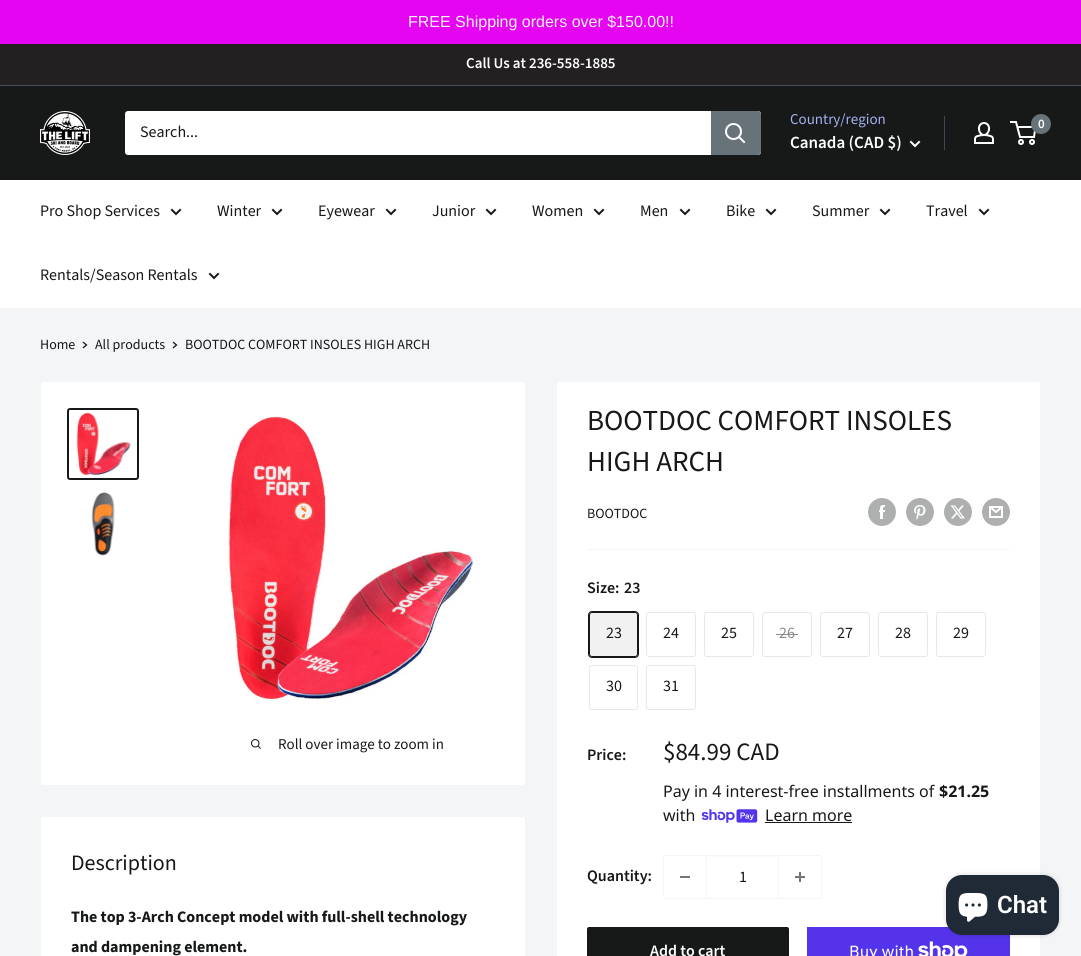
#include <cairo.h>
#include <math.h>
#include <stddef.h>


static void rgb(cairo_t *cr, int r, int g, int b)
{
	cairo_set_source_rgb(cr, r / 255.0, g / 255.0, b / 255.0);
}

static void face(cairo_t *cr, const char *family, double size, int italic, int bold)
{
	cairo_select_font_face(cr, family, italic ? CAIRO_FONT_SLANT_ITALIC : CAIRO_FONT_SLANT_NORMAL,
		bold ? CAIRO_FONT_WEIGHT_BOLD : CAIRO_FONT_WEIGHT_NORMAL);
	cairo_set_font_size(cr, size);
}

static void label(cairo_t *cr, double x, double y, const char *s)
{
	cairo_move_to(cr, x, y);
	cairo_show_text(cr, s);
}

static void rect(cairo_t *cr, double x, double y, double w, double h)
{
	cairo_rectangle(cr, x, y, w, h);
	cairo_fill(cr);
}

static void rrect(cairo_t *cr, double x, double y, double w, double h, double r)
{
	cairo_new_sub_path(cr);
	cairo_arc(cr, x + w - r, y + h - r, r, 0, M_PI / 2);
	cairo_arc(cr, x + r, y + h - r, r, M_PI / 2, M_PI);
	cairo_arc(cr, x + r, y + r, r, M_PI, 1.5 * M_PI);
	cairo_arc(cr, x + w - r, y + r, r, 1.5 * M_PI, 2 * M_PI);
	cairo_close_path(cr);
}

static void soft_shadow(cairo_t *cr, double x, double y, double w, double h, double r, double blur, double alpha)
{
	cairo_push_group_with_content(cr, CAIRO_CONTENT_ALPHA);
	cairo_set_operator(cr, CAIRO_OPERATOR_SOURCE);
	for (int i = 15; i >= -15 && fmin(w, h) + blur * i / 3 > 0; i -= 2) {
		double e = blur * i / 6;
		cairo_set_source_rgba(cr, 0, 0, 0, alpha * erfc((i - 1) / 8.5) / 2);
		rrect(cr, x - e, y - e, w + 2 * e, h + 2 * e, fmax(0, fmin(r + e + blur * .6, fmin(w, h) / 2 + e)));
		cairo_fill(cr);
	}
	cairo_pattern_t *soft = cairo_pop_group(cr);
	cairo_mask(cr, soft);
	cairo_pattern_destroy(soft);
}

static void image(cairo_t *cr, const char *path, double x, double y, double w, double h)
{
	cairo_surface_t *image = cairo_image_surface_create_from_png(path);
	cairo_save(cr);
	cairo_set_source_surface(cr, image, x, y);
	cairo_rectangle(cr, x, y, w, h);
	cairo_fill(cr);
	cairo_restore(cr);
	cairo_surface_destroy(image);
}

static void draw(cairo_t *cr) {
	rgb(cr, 243, 245, 246);
	cairo_paint(cr);
	rgb(cr, 229, 5, 242);
	rect(cr, 0, 0, 1081, 44);
	face(cr, "Liberation Sans", 16, 0, 0);
	rgb(cr, 242, 242, 242);
	label(cr, 408, 27, "FREE Shipping orders over $150.00!!");
	rgb(cr, 34, 32, 33);
	rect(cr, 0, 44, 1081, 41);
	rgb(cr, 73, 75, 95);
	rect(cr, 0, 85, 1081, 1);
	face(cr, "Source Sans Pro SemiBold", 15, 0, 0);
	rgb(cr, 255, 255, 255);
	label(cr, 466, 68, "Call Us at 236-558-1885");
	rgb(cr, 23, 25, 25);
	rect(cr, 0, 86, 1081, 94);
	image(cr, "image0.png", 40, 111, 50, 44);
	rgb(cr, 255, 255, 255);
	rrect(cr, 125, 111, 636, 44, 3);
	cairo_fill(cr);
	face(cr, "Source Sans Pro", 16, 0, 0);
	rgb(cr, 23, 25, 25);
	label(cr, 140, 137, "Search...");
	rgb(cr, 103, 114, 121);
	cairo_new_path(cr);
	cairo_move_to(cr, 711, 111);
	cairo_line_to(cr, 758, 111);
	cairo_curve_to(cr, 759.5, 111, 761, 112.5, 761, 114);
	cairo_line_to(cr, 761, 152);
	cairo_curve_to(cr, 761, 153.5, 759.5, 155, 758, 155);
	cairo_line_to(cr, 711, 155);
	cairo_close_path(cr);
	cairo_fill(cr);
	cairo_new_path(cr);
	cairo_move_to(cr, 744, 142);
	cairo_line_to(cr, 739, 137);
	rgb(cr, 255, 255, 255);
	cairo_set_line_cap(cr, CAIRO_LINE_CAP_SQUARE);
	cairo_stroke(cr);
	cairo_arc(cr, 733.5, 131.5, 7.5, 0, 2 * M_PI);
	cairo_set_line_cap(cr, CAIRO_LINE_CAP_BUTT);
	cairo_stroke(cr);
	face(cr, "Source Sans Pro", 15, 0, 0);
	rgb(cr, 163, 175, 239);
	label(cr, 790, 124, "Country/region");
	face(cr, "Source Sans Pro SemiBold", 17, 0, 0);
	rgb(cr, 255, 255, 255);
	label(cr, 790, 148, "Canada (CAD $)");
	cairo_new_path(cr);
	cairo_move_to(cr, 919, 142);
	cairo_line_to(cr, 915, 146);
	cairo_line_to(cr, 911, 142);
	cairo_set_line_cap(cr, CAIRO_LINE_CAP_SQUARE);
	cairo_stroke(cr);
	rgb(cr, 65, 70, 89);
	rect(cr, 944, 116, 1, 34);
	image(cr, "image1.png", 974, 122, 20, 22);
	cairo_arc(cr, 1021, 142, 2, 0, 2 * M_PI);
	rgb(cr, 255, 255, 255);
	cairo_set_line_cap(cr, CAIRO_LINE_CAP_BUTT);
	cairo_stroke(cr);
	cairo_arc(cr, 1032, 142, 2, 0, 2 * M_PI);
	cairo_stroke(cr);
	cairo_new_path(cr);
	cairo_move_to(cr, 1017.5, 127);
	cairo_line_to(cr, 1035.5, 127);
	cairo_line_to(cr, 1034, 137);
	cairo_line_to(cr, 1020, 137);
	cairo_line_to(cr, 1016, 122);
	cairo_line_to(cr, 1010, 122);
	cairo_stroke(cr);
	rgb(cr, 103, 114, 121);
	cairo_arc(cr, 1041, 124, 10, 0, 2 * M_PI);
	cairo_fill(cr);
	face(cr, "Source Sans Pro SemiBold", 13, 0, 0);
	rgb(cr, 255, 255, 255);
	label(cr, 1038, 128, "0");
	rect(cr, 0, 180, 1081, 128);
	face(cr, "Source Sans Pro", 16, 0, 0);
	rgb(cr, 23, 25, 25);
	label(cr, 40, 216, "Pro Shop Services");
	cairo_new_path(cr);
	cairo_move_to(cr, 180, 210);
	cairo_line_to(cr, 176, 214);
	cairo_line_to(cr, 172, 210);
	cairo_set_line_cap(cr, CAIRO_LINE_CAP_SQUARE);
	cairo_stroke(cr);
	label(cr, 217, 216, "Winter");
	cairo_new_path(cr);
	cairo_move_to(cr, 281, 210);
	cairo_line_to(cr, 277, 214);
	cairo_line_to(cr, 273, 210);
	cairo_stroke(cr);
	label(cr, 318, 216, "Eyewear");
	cairo_new_path(cr);
	cairo_move_to(cr, 395, 210);
	cairo_line_to(cr, 391, 214);
	cairo_line_to(cr, 387, 210);
	cairo_stroke(cr);
	label(cr, 432, 216, "Junior");
	cairo_new_path(cr);
	cairo_move_to(cr, 495, 210);
	cairo_line_to(cr, 491, 214);
	cairo_line_to(cr, 487, 210);
	cairo_stroke(cr);
	label(cr, 532, 216, "Women");
	cairo_new_path(cr);
	cairo_move_to(cr, 603, 210);
	cairo_line_to(cr, 599, 214);
	cairo_line_to(cr, 595, 210);
	cairo_stroke(cr);
	label(cr, 640, 216, "Men");
	cairo_new_path(cr);
	cairo_move_to(cr, 689, 210);
	cairo_line_to(cr, 685, 214);
	cairo_line_to(cr, 681, 210);
	cairo_stroke(cr);
	label(cr, 726, 216, "Bike");
	cairo_new_path(cr);
	cairo_move_to(cr, 775, 210);
	cairo_line_to(cr, 771, 214);
	cairo_line_to(cr, 767, 210);
	cairo_stroke(cr);
	label(cr, 812, 216, "Summer");
	cairo_new_path(cr);
	cairo_move_to(cr, 889, 210);
	cairo_line_to(cr, 885, 214);
	cairo_line_to(cr, 881, 210);
	cairo_stroke(cr);
	label(cr, 926, 216, "Travel");
	cairo_new_path(cr);
	cairo_move_to(cr, 988, 210);
	cairo_line_to(cr, 984, 214);
	cairo_line_to(cr, 980, 210);
	cairo_stroke(cr);
	label(cr, 40, 280, "Rentals/Season Rentals");
	cairo_new_path(cr);
	cairo_move_to(cr, 218, 274);
	cairo_line_to(cr, 214, 278);
	cairo_line_to(cr, 210, 274);
	cairo_stroke(cr);
	face(cr, "Source Sans Pro", 14, 0, 0);
	label(cr, 40, 349, "Home");
	cairo_new_path(cr);
	cairo_move_to(cr, 83.5, 342.5);
	cairo_line_to(cr, 86.5, 345);
	cairo_line_to(cr, 83.5, 347.5);
	cairo_set_line_width(cr, 1.3);
	cairo_stroke(cr);
	label(cr, 95, 349, "All products");
	cairo_new_path(cr);
	cairo_move_to(cr, 173.5, 342.5);
	cairo_line_to(cr, 176.5, 345);
	cairo_line_to(cr, 173.5, 347.5);
	cairo_stroke(cr);
	label(cr, 185, 349, "BOOTDOC COMFORT INSOLES HIGH ARCH");
	rgb(cr, 255, 255, 255);
	rrect(cr, 40.5, 381.5, 485, 404, 2.5);
	cairo_fill_preserve(cr);
	rgb(cr, 243, 245, 246);
	cairo_set_line_width(cr, 1);
	cairo_set_line_cap(cr, CAIRO_LINE_CAP_BUTT);
	cairo_stroke(cr);
	rrect(cr, 68, 409, 70, 70, 2);
	rgb(cr, 23, 25, 25);
	cairo_set_line_width(cr, 2);
	cairo_stroke(cr);
	image(cr, "image2.png", 75, 412, 56, 64);
	image(cr, "image3.png", 91, 492, 24, 64);
	image(cr, "image4.png", 228, 416, 246, 287);
	image(cr, "image5.png", 251, 739, 10, 10);
	face(cr, "Source Sans Pro", 15, 0, 0);
	label(cr, 278, 749, "Roll over image to zoom in");
	rgb(cr, 255, 255, 255);
	rrect(cr, 556.5, 381.5, 484, 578, 2.5);
	cairo_fill_preserve(cr);
	rgb(cr, 243, 245, 246);
	cairo_set_line_width(cr, 1);
	cairo_stroke(cr);
	face(cr, "Source Sans Pro", 29, 0, 0);
	rgb(cr, 23, 25, 25);
	label(cr, 587, 430, "BOOTDOC COMFORT INSOLES");
	label(cr, 587, 471, "HIGH ARCH");
	face(cr, "Source Sans Pro", 14, 0, 0);
	label(cr, 587, 518, "BOOTDOC");
	image(cr, "image6.png", 868, 498, 28, 28);
	image(cr, "image7.png", 906, 498, 28, 28);
	image(cr, "image8.png", 944, 498, 28, 28);
	image(cr, "image9.png", 982, 498, 28, 28);
	rgb(cr, 243, 245, 246);
	rect(cr, 587, 549, 423, 1);
	face(cr, "Source Sans Pro SemiBold", 16, 0, 0);
	rgb(cr, 23, 25, 25);
	label(cr, 587, 593, "Size:");
	label(cr, 624, 593, "23");
	rrect(cr, 588.5, 611.5, 50, 46, 3.5);
	cairo_stroke(cr);
	cairo_set_source_rgba(cr, 0.09, 0.098, 0.098, 0.06);
	rect(cr, 589, 612, 49, 45);
	rrect(cr, 589.5, 612.5, 48, 44, 2.5);
	rgb(cr, 23, 25, 25);
	cairo_stroke(cr);
	face(cr, "Source Sans Pro", 16, 0, 0);
	label(cr, 606, 638, "23");
	rrect(cr, 646.5, 612.5, 49, 44, 2.5);
	rgb(cr, 228, 233, 235);
	cairo_stroke(cr);
	rgb(cr, 23, 25, 25);
	label(cr, 663, 638, "24");
	rrect(cr, 704.5, 612.5, 49, 44, 2.5);
	rgb(cr, 228, 233, 235);
	cairo_stroke(cr);
	rgb(cr, 23, 25, 25);
	label(cr, 721, 638, "25");
	rrect(cr, 762.5, 612.5, 49, 44, 2.5);
	rgb(cr, 228, 233, 235);
	cairo_stroke(cr);
	rgb(cr, 139, 140, 140);
	label(cr, 779, 638, "26");
	rect(cr, 776, 634, 22, 1);
	rrect(cr, 820.5, 612.5, 49, 44, 2.5);
	rgb(cr, 228, 233, 235);
	cairo_stroke(cr);
	rgb(cr, 23, 25, 25);
	label(cr, 837, 638, "27");
	rrect(cr, 878.5, 612.5, 49, 44, 2.5);
	rgb(cr, 228, 233, 235);
	cairo_stroke(cr);
	rgb(cr, 23, 25, 25);
	label(cr, 895, 638, "28");
	rrect(cr, 936.5, 612.5, 49, 44, 2.5);
	rgb(cr, 228, 233, 235);
	cairo_stroke(cr);
	rgb(cr, 23, 25, 25);
	label(cr, 953, 638, "29");
	rrect(cr, 589.5, 665.5, 48, 44, 2.5);
	rgb(cr, 228, 233, 235);
	cairo_stroke(cr);
	rgb(cr, 23, 25, 25);
	label(cr, 606, 691, "30");
	rrect(cr, 646.5, 665.5, 49, 44, 2.5);
	rgb(cr, 228, 233, 235);
	cairo_stroke(cr);
	rgb(cr, 23, 25, 25);
	label(cr, 663, 691, "31");
	face(cr, "Source Sans Pro SemiBold", 16, 0, 0);
	label(cr, 587, 760, "Price:");
	face(cr, "Source Sans Pro", 25, 0, 0);
	label(cr, 663, 760, "$84.99 CAD");
	face(cr, "Noto Sans", 16, 0, 0);
	label(cr, 663, 797, "Pay in 4 interest-free installments of");
	face(cr, "Noto Sans", 16, 0, 1);
	label(cr, 939, 797, "$21.25");
	face(cr, "Noto Sans", 16, 0, 0);
	label(cr, 663, 821, "with");
	image(cr, "image10.png", 701, 809, 57, 14);
	label(cr, 765, 821, "Learn more");
	rect(cr, 765, 822, 87, 1);
	face(cr, "Source Sans Pro SemiBold", 16, 0, 0);
	label(cr, 587, 881, "Quantity:");
	rrect(cr, 663.5, 855.5, 158, 43, 2.5);
	rgb(cr, 243, 245, 246);
	cairo_stroke(cr);
	rgb(cr, 116, 117, 117);
	rect(cr, 680, 876, 10, 2);
	rgb(cr, 250, 251, 251);
	rect(cr, 707, 856, 71, 1);
	rgb(cr, 243, 245, 246);
	rect(cr, 778, 856, 1, 42);
	rect(cr, 706, 856, 1, 42);
	face(cr, "Source Sans Pro", 16, 0, 0);
	rgb(cr, 23, 25, 25);
	label(cr, 739, 882, "1");
	image(cr, "image11.png", 795, 872, 10, 10);
	rrect(cr, 587, 927, 202, 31, 2);
	cairo_fill(cr);
	face(cr, "Source Sans Pro SemiBold", 16, 0, 0);
	rgb(cr, 255, 255, 255);
	label(cr, 650, 956, "Add to cart");
	rgb(cr, 84, 51, 235);
	rect(cr, 807, 927, 203, 29);
	face(cr, "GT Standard", 16, 0, 0);
	rgb(cr, 255, 255, 255);
	label(cr, 849, 957, "Buy with");
	image(cr, "image12.png", 918, 941, 50, 15);
	rrect(cr, 40.5, 816.5, 485, 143, 2.5);
	cairo_fill_preserve(cr);
	rgb(cr, 243, 245, 246);
	cairo_stroke(cr);
	face(cr, "Source Sans Pro", 22, 0, 0);
	rgb(cr, 23, 25, 25);
	label(cr, 71, 870, "Description");
	face(cr, "Source Sans Pro", 16, 0, 1);
	label(cr, 71, 922, "The top 3-Arch Concept model with full-shell technology");
	label(cr, 71, 952, "and dampening element.");
	rgb(cr, 0, 0, 0);
	soft_shadow(cr, 946, 875, 113, 60, 16, 2.5, 0.15);
	rgb(cr, 32, 42, 54);
	rrect(cr, 946, 875, 113, 60, 16);
	cairo_fill(cr);
	image(cr, "image13.png", 958, 893, 30, 29);
	face(cr, "Roboto SemiBold", 24, 0, 0);
	rgb(cr, 255, 255, 255);
	label(cr, 997, 913, "Chat");
}

int main(void) {
	cairo_surface_t *surface = cairo_image_surface_create(CAIRO_FORMAT_RGB24, 1081, 956);
	cairo_t *cr = cairo_create(surface);
	cairo_font_options_t *options = cairo_font_options_create();
	cairo_font_options_set_hint_metrics(options, CAIRO_HINT_METRICS_OFF);
	cairo_font_options_set_hint_style(options, CAIRO_HINT_STYLE_NONE);
	cairo_set_font_options(cr, options);
	cairo_set_miter_limit(cr, 4);
	draw(cr);
	cairo_surface_write_to_png(surface, "render.png");
	cairo_font_options_destroy(options);
	cairo_destroy(cr);
	cairo_surface_destroy(surface);
	return 0;
}
